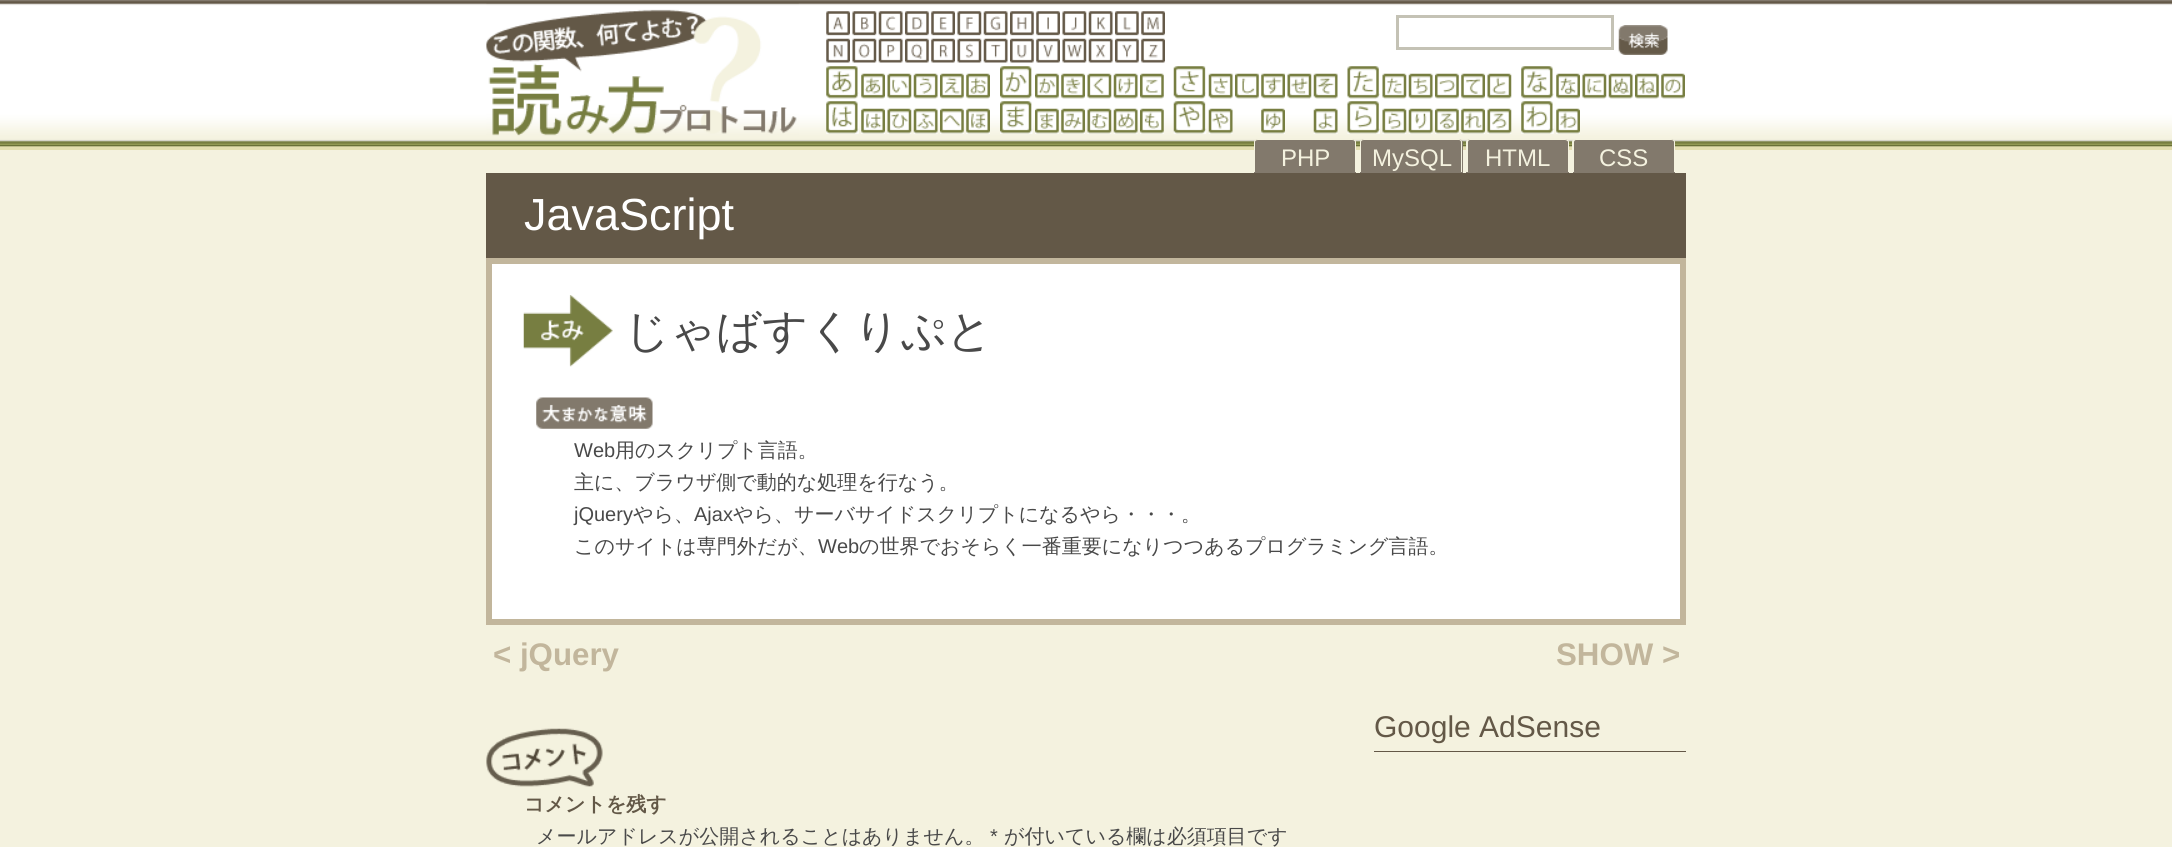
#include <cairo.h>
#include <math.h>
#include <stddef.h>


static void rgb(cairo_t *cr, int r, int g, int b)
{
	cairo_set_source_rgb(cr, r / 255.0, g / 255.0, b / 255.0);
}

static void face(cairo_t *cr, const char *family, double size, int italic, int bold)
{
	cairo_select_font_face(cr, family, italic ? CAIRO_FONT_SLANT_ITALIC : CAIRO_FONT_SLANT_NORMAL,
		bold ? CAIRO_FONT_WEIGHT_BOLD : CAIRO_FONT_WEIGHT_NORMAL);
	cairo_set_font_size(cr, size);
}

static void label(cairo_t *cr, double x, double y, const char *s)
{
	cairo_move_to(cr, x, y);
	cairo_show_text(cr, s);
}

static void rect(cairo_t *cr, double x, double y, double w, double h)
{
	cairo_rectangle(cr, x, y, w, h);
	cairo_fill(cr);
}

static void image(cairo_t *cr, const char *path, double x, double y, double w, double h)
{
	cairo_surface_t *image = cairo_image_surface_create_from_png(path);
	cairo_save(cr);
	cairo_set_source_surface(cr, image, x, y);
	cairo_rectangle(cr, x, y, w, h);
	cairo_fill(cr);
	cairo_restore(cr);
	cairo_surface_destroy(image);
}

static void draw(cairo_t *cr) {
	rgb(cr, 244, 242, 223);
	cairo_paint(cr);
	image(cr, "image0.png", 0, 0, 2172, 150);
	image(cr, "image1.png", 486, 3, 313, 133);
	image(cr, "image2.png", 826, 11, 24, 25);
	image(cr, "image3.png", 852, 11, 25, 25);
	image(cr, "image4.png", 878, 11, 25, 25);
	image(cr, "image5.png", 905, 11, 24, 25);
	image(cr, "image6.png", 931, 11, 24, 25);
	image(cr, "image7.png", 957, 11, 25, 25);
	image(cr, "image8.png", 983, 11, 25, 25);
	image(cr, "image9.png", 1010, 11, 24, 25);
	image(cr, "image10.png", 1036, 11, 24, 25);
	image(cr, "image11.png", 1062, 11, 25, 25);
	image(cr, "image12.png", 1088, 11, 25, 25);
	image(cr, "image13.png", 1115, 11, 24, 25);
	image(cr, "image14.png", 1141, 11, 24, 25);
	image(cr, "image15.png", 826, 38, 24, 25);
	image(cr, "image16.png", 852, 38, 25, 25);
	image(cr, "image17.png", 878, 38, 25, 25);
	image(cr, "image18.png", 905, 38, 24, 25);
	image(cr, "image19.png", 931, 38, 24, 25);
	image(cr, "image20.png", 957, 38, 25, 25);
	image(cr, "image21.png", 983, 38, 25, 25);
	image(cr, "image22.png", 1010, 38, 24, 25);
	image(cr, "image23.png", 1036, 38, 24, 25);
	image(cr, "image24.png", 1062, 38, 25, 25);
	image(cr, "image25.png", 1088, 38, 25, 25);
	image(cr, "image26.png", 1115, 38, 24, 25);
	image(cr, "image27.png", 1141, 38, 24, 25);
	cairo_rectangle(cr, 1397.5, 16.5, 215, 32);
	rgb(cr, 196, 194, 181);
	cairo_set_line_width(cr, 3);
	cairo_stroke(cr);
	image(cr, "image28.png", 1618, 25, 50, 30);
	image(cr, "image29.png", 826, 66, 33, 33);
	image(cr, "image30.png", 861, 73, 24, 26);
	image(cr, "image31.png", 887, 73, 25, 26);
	image(cr, "image32.png", 913, 73, 25, 26);
	image(cr, "image33.png", 940, 73, 24, 26);
	image(cr, "image34.png", 966, 73, 24, 26);
	image(cr, "image35.png", 1000, 66, 33, 33);
	image(cr, "image36.png", 1035, 73, 24, 26);
	image(cr, "image37.png", 1061, 73, 24, 26);
	image(cr, "image38.png", 1087, 73, 25, 26);
	image(cr, "image39.png", 1113, 73, 25, 26);
	image(cr, "image40.png", 1140, 73, 24, 26);
	image(cr, "image41.png", 1173, 66, 33, 33);
	image(cr, "image42.png", 1208, 73, 25, 26);
	image(cr, "image43.png", 1235, 73, 24, 26);
	image(cr, "image44.png", 1261, 73, 24, 26);
	image(cr, "image45.png", 1287, 73, 25, 26);
	image(cr, "image46.png", 1313, 73, 25, 26);
	image(cr, "image47.png", 1347, 66, 33, 33);
	image(cr, "image48.png", 1382, 73, 25, 26);
	image(cr, "image49.png", 1408, 73, 25, 26);
	image(cr, "image50.png", 1435, 73, 24, 26);
	image(cr, "image51.png", 1461, 73, 24, 26);
	image(cr, "image52.png", 1487, 73, 25, 26);
	image(cr, "image53.png", 1521, 66, 33, 33);
	image(cr, "image54.png", 1556, 73, 24, 26);
	image(cr, "image55.png", 1582, 73, 25, 26);
	image(cr, "image56.png", 1608, 73, 25, 26);
	image(cr, "image57.png", 1635, 73, 24, 26);
	image(cr, "image58.png", 1661, 73, 24, 26);
	image(cr, "image59.png", 826, 101, 33, 33);
	image(cr, "image60.png", 861, 108, 24, 26);
	image(cr, "image61.png", 887, 108, 25, 26);
	image(cr, "image62.png", 913, 108, 25, 26);
	image(cr, "image63.png", 940, 108, 24, 26);
	image(cr, "image64.png", 966, 108, 24, 26);
	image(cr, "image65.png", 1000, 101, 33, 33);
	image(cr, "image66.png", 1035, 108, 24, 26);
	image(cr, "image67.png", 1061, 108, 24, 26);
	image(cr, "image68.png", 1087, 108, 25, 26);
	image(cr, "image69.png", 1113, 108, 25, 26);
	image(cr, "image70.png", 1140, 108, 24, 26);
	image(cr, "image71.png", 1173, 101, 34, 33);
	image(cr, "image72.png", 1208, 108, 25, 26);
	image(cr, "image73.png", 1261, 108, 24, 26);
	image(cr, "image74.png", 1313, 108, 25, 26);
	image(cr, "image75.png", 1347, 101, 33, 33);
	image(cr, "image76.png", 1382, 108, 25, 26);
	image(cr, "image77.png", 1408, 108, 25, 26);
	image(cr, "image78.png", 1435, 108, 24, 26);
	image(cr, "image79.png", 1461, 108, 24, 26);
	image(cr, "image80.png", 1487, 108, 25, 26);
	image(cr, "image81.png", 1521, 101, 33, 33);
	image(cr, "image82.png", 1556, 108, 24, 26);
	rgb(cr, 130, 121, 108);
	cairo_new_path(cr);
	cairo_move_to(cr, 1258, 139);
	cairo_line_to(cr, 1352, 139);
	cairo_curve_to(cr, 1354, 139, 1356, 141, 1356, 143);
	cairo_line_to(cr, 1356, 173);
	cairo_line_to(cr, 1254, 173);
	cairo_line_to(cr, 1254, 143);
	cairo_curve_to(cr, 1254, 141, 1256, 139, 1258, 139);
	cairo_close_path(cr);
	cairo_fill(cr);
	rgb(cr, 244, 242, 223);
	cairo_set_fill_rule(cr, CAIRO_FILL_RULE_EVEN_ODD);
	cairo_new_path(cr);
	cairo_move_to(cr, 1258, 139);
	cairo_line_to(cr, 1352, 139);
	cairo_curve_to(cr, 1355, 139, 1356, 140, 1356, 142);
	cairo_line_to(cr, 1356, 172);
	cairo_line_to(cr, 1254, 172);
	cairo_line_to(cr, 1254, 142);
	cairo_curve_to(cr, 1254, 140, 1255, 139, 1258, 139);
	cairo_close_path(cr);
	cairo_move_to(cr, 1258, 140);
	cairo_line_to(cr, 1352, 140);
	cairo_curve_to(cr, 1354, 140, 1355, 141, 1355, 142);
	cairo_line_to(cr, 1355, 172);
	cairo_line_to(cr, 1255, 172);
	cairo_line_to(cr, 1255, 142);
	cairo_curve_to(cr, 1255, 141, 1256, 140, 1258, 140);
	cairo_close_path(cr);
	cairo_fill(cr);
	face(cr, "Liberation Sans", 24, 0, 0);
	label(cr, 1281, 166, "PHP");
	rgb(cr, 130, 121, 108);
	cairo_new_path(cr);
	cairo_move_to(cr, 1364, 139);
	cairo_line_to(cr, 1459, 139);
	cairo_curve_to(cr, 1461, 139, 1463, 141, 1463, 143);
	cairo_line_to(cr, 1463, 173);
	cairo_line_to(cr, 1360, 173);
	cairo_line_to(cr, 1360, 143);
	cairo_curve_to(cr, 1360, 141, 1362, 139, 1364, 139);
	cairo_close_path(cr);
	cairo_fill(cr);
	rgb(cr, 244, 242, 223);
	cairo_new_path(cr);
	cairo_move_to(cr, 1364, 139);
	cairo_line_to(cr, 1459, 139);
	cairo_curve_to(cr, 1461, 139, 1462, 140, 1462, 142);
	cairo_line_to(cr, 1462, 172);
	cairo_line_to(cr, 1360, 172);
	cairo_line_to(cr, 1360, 142);
	cairo_curve_to(cr, 1360, 140, 1362, 139, 1364, 139);
	cairo_close_path(cr);
	cairo_move_to(cr, 1364, 140);
	cairo_line_to(cr, 1459, 140);
	cairo_curve_to(cr, 1460, 140, 1461, 141, 1461, 142);
	cairo_line_to(cr, 1461, 172);
	cairo_line_to(cr, 1361, 172);
	cairo_line_to(cr, 1361, 142);
	cairo_curve_to(cr, 1361, 141, 1362, 140, 1364, 140);
	cairo_close_path(cr);
	cairo_fill(cr);
	label(cr, 1372, 166, "MySQL");
	rgb(cr, 130, 121, 108);
	cairo_new_path(cr);
	cairo_move_to(cr, 1470, 139);
	cairo_line_to(cr, 1565, 139);
	cairo_curve_to(cr, 1567, 139, 1569, 141, 1569, 143);
	cairo_line_to(cr, 1569, 173);
	cairo_line_to(cr, 1466, 173);
	cairo_line_to(cr, 1466, 143);
	cairo_curve_to(cr, 1466, 141, 1468, 139, 1470, 139);
	cairo_close_path(cr);
	cairo_fill(cr);
	rgb(cr, 244, 242, 223);
	cairo_new_path(cr);
	cairo_move_to(cr, 1470, 139);
	cairo_line_to(cr, 1565, 139);
	cairo_curve_to(cr, 1567, 139, 1569, 140, 1569, 142);
	cairo_line_to(cr, 1569, 172);
	cairo_line_to(cr, 1466, 172);
	cairo_line_to(cr, 1466, 142);
	cairo_curve_to(cr, 1466, 140, 1468, 139, 1470, 139);
	cairo_close_path(cr);
	cairo_move_to(cr, 1470, 140);
	cairo_line_to(cr, 1565, 140);
	cairo_curve_to(cr, 1566, 140, 1568, 141, 1568, 142);
	cairo_line_to(cr, 1568, 172);
	cairo_line_to(cr, 1468, 172);
	cairo_line_to(cr, 1468, 142);
	cairo_curve_to(cr, 1468, 141, 1469, 140, 1470, 140);
	cairo_close_path(cr);
	cairo_fill(cr);
	label(cr, 1485, 166, "HTML");
	rgb(cr, 130, 121, 108);
	cairo_new_path(cr);
	cairo_move_to(cr, 1577, 139);
	cairo_line_to(cr, 1671, 139);
	cairo_curve_to(cr, 1673, 139, 1675, 141, 1675, 143);
	cairo_line_to(cr, 1675, 173);
	cairo_line_to(cr, 1573, 173);
	cairo_line_to(cr, 1573, 143);
	cairo_curve_to(cr, 1573, 141, 1575, 139, 1577, 139);
	cairo_close_path(cr);
	cairo_fill(cr);
	rgb(cr, 244, 242, 223);
	cairo_new_path(cr);
	cairo_move_to(cr, 1576, 139);
	cairo_line_to(cr, 1671, 139);
	cairo_curve_to(cr, 1673, 139, 1675, 140, 1675, 142);
	cairo_line_to(cr, 1675, 172);
	cairo_line_to(cr, 1572, 172);
	cairo_line_to(cr, 1572, 142);
	cairo_curve_to(cr, 1572, 140, 1574, 139, 1576, 139);
	cairo_close_path(cr);
	cairo_move_to(cr, 1576, 140);
	cairo_line_to(cr, 1671, 140);
	cairo_curve_to(cr, 1673, 140, 1674, 141, 1674, 142);
	cairo_line_to(cr, 1674, 172);
	cairo_line_to(cr, 1574, 172);
	cairo_line_to(cr, 1574, 142);
	cairo_curve_to(cr, 1574, 141, 1575, 140, 1576, 140);
	cairo_close_path(cr);
	cairo_fill(cr);
	label(cr, 1599, 166, "CSS");
	rgb(cr, 99, 88, 71);
	rect(cr, 486, 173, 1200, 85);
	face(cr, "Liberation Sans", 45, 0, 0);
	rgb(cr, 255, 255, 255);
	label(cr, 524, 230, "JavaScript");
	cairo_rectangle(cr, 489, 261, 1194, 361);
	cairo_fill_preserve(cr);
	rgb(cr, 194, 182, 156);
	cairo_set_line_width(cr, 6);
	cairo_stroke(cr);
	image(cr, "image83.png", 523, 295, 90, 72);
	face(cr, "WenQuanYi Zen Hei Medium", 45, 0, 0);
	rgb(cr, 73, 73, 73);
	label(cr, 624, 346, "じゃばすくりぷと");
	image(cr, "image84.png", 536, 397, 117, 32);
	face(cr, "Liberation Sans", 20, 0, 0);
	label(cr, 574, 457, "Web");
	face(cr, "WenQuanYi Zen Hei Medium", 20, 0, 0);
	label(cr, 615, 457, "用のスクリプト言語。");
	label(cr, 574, 489, "主に、ブラウザ側で動的な処理を行なう。");
	face(cr, "Liberation Sans", 20, 0, 0);
	label(cr, 574, 521, "jQuery");
	face(cr, "WenQuanYi Zen Hei Medium", 20, 0, 0);
	label(cr, 633, 521, "やら、");
	face(cr, "Liberation Sans", 20, 0, 0);
	label(cr, 694, 521, "Ajax");
	face(cr, "WenQuanYi Zen Hei Medium", 20, 0, 0);
	label(cr, 733, 521, "やら、サーバサイドスクリプトになるやら・・・。");
	label(cr, 574, 553, "このサイトは専門外だが、");
	face(cr, "Liberation Sans", 20, 0, 0);
	label(cr, 818, 553, "Web");
	face(cr, "WenQuanYi Zen Hei Medium", 20, 0, 0);
	label(cr, 859, 553, "の世界でおそらく一番重要になりつつあるプログラミング言語。");
	face(cr, "Liberation Sans", 31.25, 0, 1);
	rgb(cr, 194, 182, 156);
	label(cr, 493, 665, "< jQuery");
	label(cr, 1556, 665, "SHOW >");
	rgb(cr, 99, 88, 71);
	rect(cr, 1374, 751, 312, 1);
	face(cr, "Liberation Sans", 30, 0, 0);
	label(cr, 1374, 737, "Google AdSense");
	image(cr, "image85.png", 486, 728, 117, 59);
	face(cr, "WenQuanYi Zen Hei", 20, 0, 1);
	label(cr, 524, 811, "コメントを残す");
	face(cr, "WenQuanYi Zen Hei Medium", 20, 0, 0);
	rgb(cr, 73, 73, 73);
	label(cr, 536, 843, "メールアドレスが公開されることはありません。");
	face(cr, "Liberation Sans", 20, 0, 0);
	label(cr, 990, 843, "*");
	face(cr, "WenQuanYi Zen Hei Medium", 20, 0, 0);
	label(cr, 1004, 843, "が付いている欄は必須項目です");
}

int main(void) {
	cairo_surface_t *surface = cairo_image_surface_create(CAIRO_FORMAT_RGB24, 2172, 847);
	cairo_t *cr = cairo_create(surface);
	cairo_font_options_t *options = cairo_font_options_create();
	cairo_font_options_set_hint_metrics(options, CAIRO_HINT_METRICS_OFF);
	cairo_font_options_set_hint_style(options, CAIRO_HINT_STYLE_NONE);
	cairo_set_font_options(cr, options);
	cairo_set_miter_limit(cr, 4);
	draw(cr);
	cairo_surface_write_to_png(surface, "render.png");
	cairo_font_options_destroy(options);
	cairo_destroy(cr);
	cairo_surface_destroy(surface);
	return 0;
}
